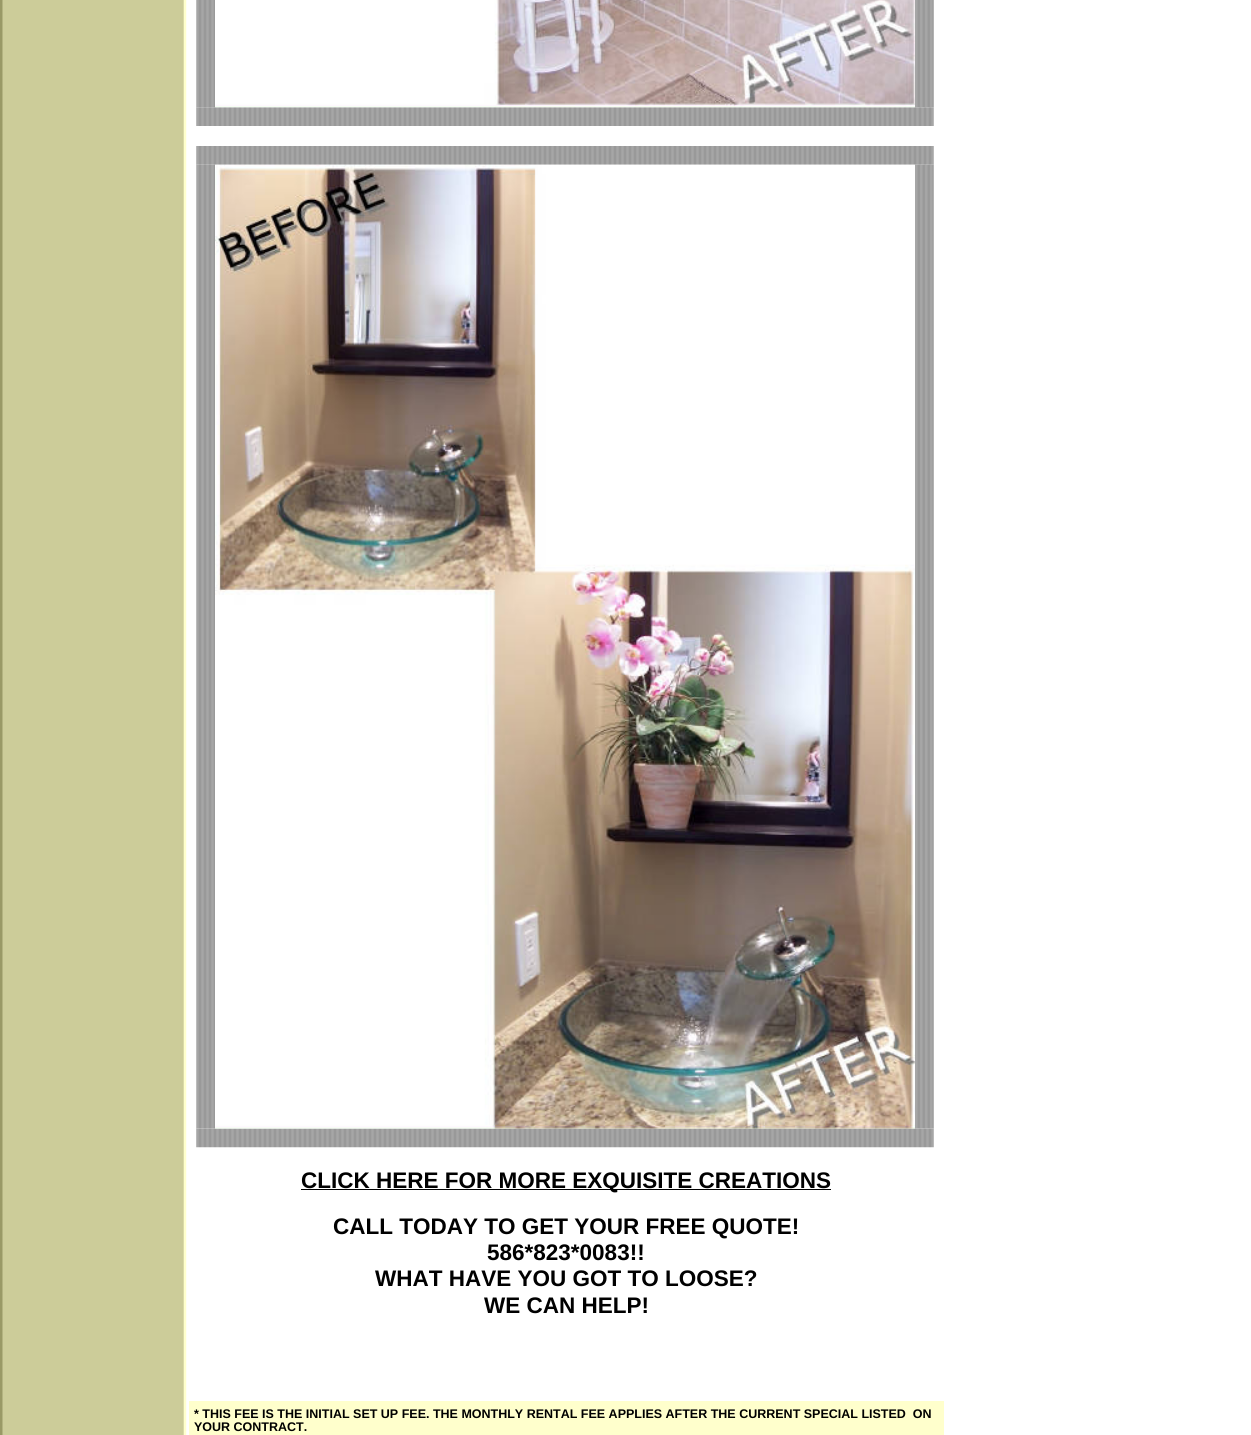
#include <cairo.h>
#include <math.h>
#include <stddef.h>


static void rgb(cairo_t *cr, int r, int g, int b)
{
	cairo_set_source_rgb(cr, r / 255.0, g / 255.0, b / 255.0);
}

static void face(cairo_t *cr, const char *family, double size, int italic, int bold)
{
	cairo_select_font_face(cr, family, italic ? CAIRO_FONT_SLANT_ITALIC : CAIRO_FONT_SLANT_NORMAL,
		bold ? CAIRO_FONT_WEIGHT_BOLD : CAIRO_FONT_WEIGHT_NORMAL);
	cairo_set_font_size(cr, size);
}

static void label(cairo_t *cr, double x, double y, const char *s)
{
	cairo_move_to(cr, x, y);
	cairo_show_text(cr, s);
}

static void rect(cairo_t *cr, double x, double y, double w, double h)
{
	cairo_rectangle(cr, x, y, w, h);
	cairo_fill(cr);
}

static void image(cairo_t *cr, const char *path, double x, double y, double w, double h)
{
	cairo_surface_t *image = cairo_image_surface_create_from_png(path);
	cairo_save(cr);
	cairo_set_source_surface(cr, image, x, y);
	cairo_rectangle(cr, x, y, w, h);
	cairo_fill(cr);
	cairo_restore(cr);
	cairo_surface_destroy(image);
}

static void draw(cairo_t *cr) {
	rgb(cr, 255, 255, 255);
	cairo_paint(cr);
	image(cr, "image0.png", 0, 0, 187, 1435);
	image(cr, "image1.png", 196, 0, 19, 108);
	image(cr, "image3.png", 915, 0, 19, 108);
	image(cr, "image4.png", 196, 107, 738, 19);
	image(cr, "image2.png", 215, 0, 700, 108);
	image(cr, "image5.png", 196, 146, 738, 19);
	image(cr, "image6.png", 196, 164, 19, 965);
	image(cr, "image8.png", 915, 164, 19, 965);
	image(cr, "image9.png", 196, 1128, 738, 20);
	image(cr, "image7.png", 215, 164, 700, 965);
	rgb(cr, 0, 0, 0);
	rect(cr, 301, 1189, 530, 1);
	face(cr, "Liberation Sans", 22.5, 0, 1);
	label(cr, 301, 1188, "CLICK HERE FOR MORE EXQUISITE CREATIONS");
	label(cr, 333, 1234, "CALL TODAY TO GET YOUR FREE QUOTE!");
	label(cr, 487, 1260, "586*823*0083!!");
	label(cr, 375, 1286, "WHAT HAVE YOU GOT TO LOOSE?");
	label(cr, 484, 1313, "WE CAN HELP!");
	rgb(cr, 255, 255, 204);
	rect(cr, 189, 1401, 755, 34);
	face(cr, "Liberation Sans", 12.5, 0, 1);
	rgb(cr, 0, 0, 0);
	label(cr, 194, 1418, "* THIS FEE IS THE INITIAL SET UP FEE. THE MONTHLY RENTAL FEE APPLIES AFTER THE CURRENT SPECIAL LISTED  ON");
	label(cr, 194, 1431, "YOUR CONTRACT.");
}

int main(void) {
	cairo_surface_t *surface = cairo_image_surface_create(CAIRO_FORMAT_RGB24, 1251, 1435);
	cairo_t *cr = cairo_create(surface);
	cairo_font_options_t *options = cairo_font_options_create();
	cairo_font_options_set_hint_metrics(options, CAIRO_HINT_METRICS_OFF);
	cairo_font_options_set_hint_style(options, CAIRO_HINT_STYLE_NONE);
	cairo_set_font_options(cr, options);
	cairo_set_miter_limit(cr, 4);
	draw(cr);
	cairo_surface_write_to_png(surface, "render.png");
	cairo_font_options_destroy(options);
	cairo_destroy(cr);
	cairo_surface_destroy(surface);
	return 0;
}
